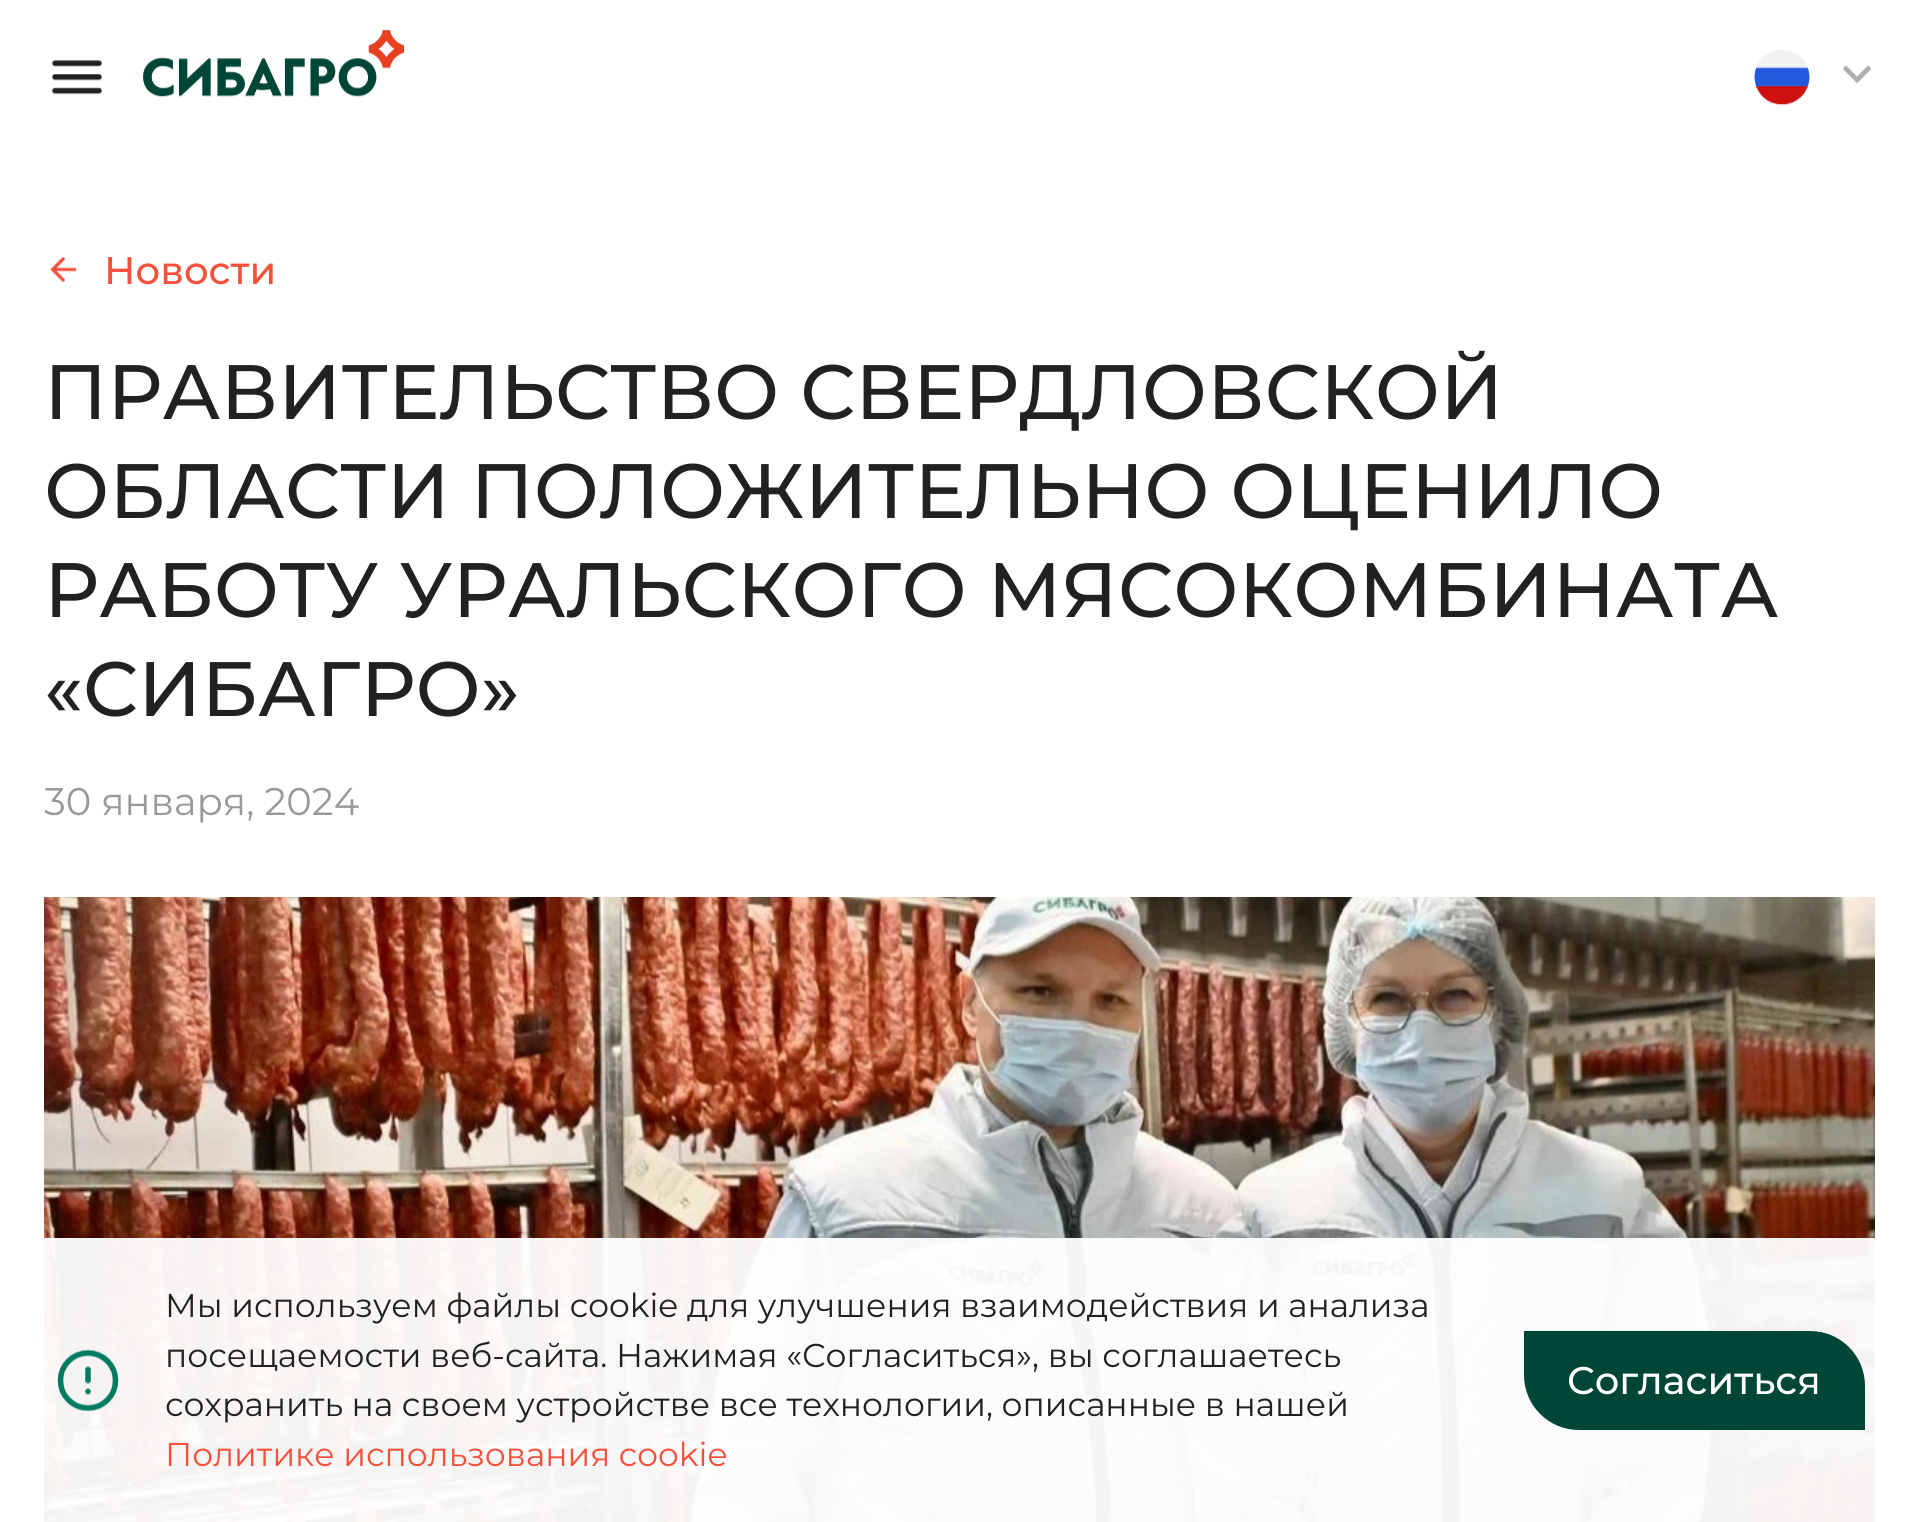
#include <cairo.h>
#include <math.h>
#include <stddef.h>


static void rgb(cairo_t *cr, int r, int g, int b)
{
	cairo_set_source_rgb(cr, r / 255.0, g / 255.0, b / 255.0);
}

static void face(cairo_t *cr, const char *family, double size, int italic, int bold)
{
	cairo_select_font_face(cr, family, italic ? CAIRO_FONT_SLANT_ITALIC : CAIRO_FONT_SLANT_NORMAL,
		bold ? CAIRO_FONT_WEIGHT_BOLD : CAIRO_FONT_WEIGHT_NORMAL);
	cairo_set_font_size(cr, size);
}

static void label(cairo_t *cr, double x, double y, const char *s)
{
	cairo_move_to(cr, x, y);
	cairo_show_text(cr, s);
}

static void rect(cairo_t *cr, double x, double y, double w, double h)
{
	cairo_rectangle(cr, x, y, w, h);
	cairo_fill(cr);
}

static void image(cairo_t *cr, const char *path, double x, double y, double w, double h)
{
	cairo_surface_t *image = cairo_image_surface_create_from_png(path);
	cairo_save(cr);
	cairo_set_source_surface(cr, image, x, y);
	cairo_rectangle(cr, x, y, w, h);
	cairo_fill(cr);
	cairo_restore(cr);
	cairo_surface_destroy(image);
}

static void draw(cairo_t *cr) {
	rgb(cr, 255, 255, 255);
	cairo_paint(cr);
	image(cr, "image0.png", 52, 60, 50, 35);
	image(cr, "image1.png", 143, 30, 261, 67);
	image(cr, "image2.png", 1754, 49, 56, 56);
	image(cr, "image3.png", 1843, 65, 28, 19);
	image(cr, "image4.png", 50, 257, 27, 26);
	face(cr, "Montserrat Medium", 38.5, 0, 0);
	rgb(cr, 245, 80, 60);
	label(cr, 104, 284, "Новости");
	face(cr, "Montserrat Medium", 77, 0, 0);
	rgb(cr, 33, 33, 33);
	label(cr, 44, 419, "ПРАВИТЕЛЬСТВО СВЕРДЛОВСКОЙ");
	label(cr, 44, 518, "ОБЛАСТИ ПОЛОЖИТЕЛЬНО ОЦЕНИЛО");
	label(cr, 44, 617, "РАБОТУ УРАЛЬСКОГО МЯСОКОМБИНАТА");
	label(cr, 44, 716, "«СИБАГРО»");
	face(cr, "Montserrat", 38.5, 0, 0);
	rgb(cr, 153, 153, 153);
	label(cr, 44, 815, "30 января, 2024");
	image(cr, "image5.png", 44, 897, 1831, 625);
	cairo_set_source_rgba(cr, 1, 1, 1, 0.95);
	rect(cr, 44, 1238, 1831, 284);
	image(cr, "image6.png", 57, 1349, 62, 63);
	face(cr, "Montserrat", 33, 0, 0);
	rgb(cr, 33, 33, 33);
	label(cr, 165, 1317, "Мы используем файлы cookie для улучшения взаимодействия и анализа");
	label(cr, 165, 1367, "посещаемости веб-сайта. Нажимая «Согласиться», вы соглашаетесь");
	label(cr, 165, 1416, "сохранить на своем устройстве все технологии, описанные в нашей");
	rgb(cr, 245, 80, 60);
	label(cr, 165, 1466, "Политике использования cookie");
	rgb(cr, 0, 70, 55);
	cairo_new_path(cr);
	cairo_move_to(cr, 1524, 1331);
	cairo_line_to(cr, 1810, 1331);
	cairo_curve_to(cr, 1840.5, 1331, 1865, 1355.5, 1865, 1386);
	cairo_line_to(cr, 1865, 1430);
	cairo_line_to(cr, 1579, 1430);
	cairo_curve_to(cr, 1548.5, 1430, 1524, 1405.5, 1524, 1375);
	cairo_close_path(cr);
	cairo_fill(cr);
	face(cr, "Montserrat Medium", 38.5, 0, 0);
	rgb(cr, 255, 255, 255);
	label(cr, 1567, 1394, "Согласиться");
}

int main(void) {
	cairo_surface_t *surface = cairo_image_surface_create(CAIRO_FORMAT_RGB24, 1918, 1522);
	cairo_t *cr = cairo_create(surface);
	cairo_font_options_t *options = cairo_font_options_create();
	cairo_font_options_set_hint_metrics(options, CAIRO_HINT_METRICS_OFF);
	cairo_font_options_set_hint_style(options, CAIRO_HINT_STYLE_NONE);
	cairo_set_font_options(cr, options);
	cairo_set_miter_limit(cr, 4);
	draw(cr);
	cairo_surface_write_to_png(surface, "render.png");
	cairo_font_options_destroy(options);
	cairo_destroy(cr);
	cairo_surface_destroy(surface);
	return 0;
}
